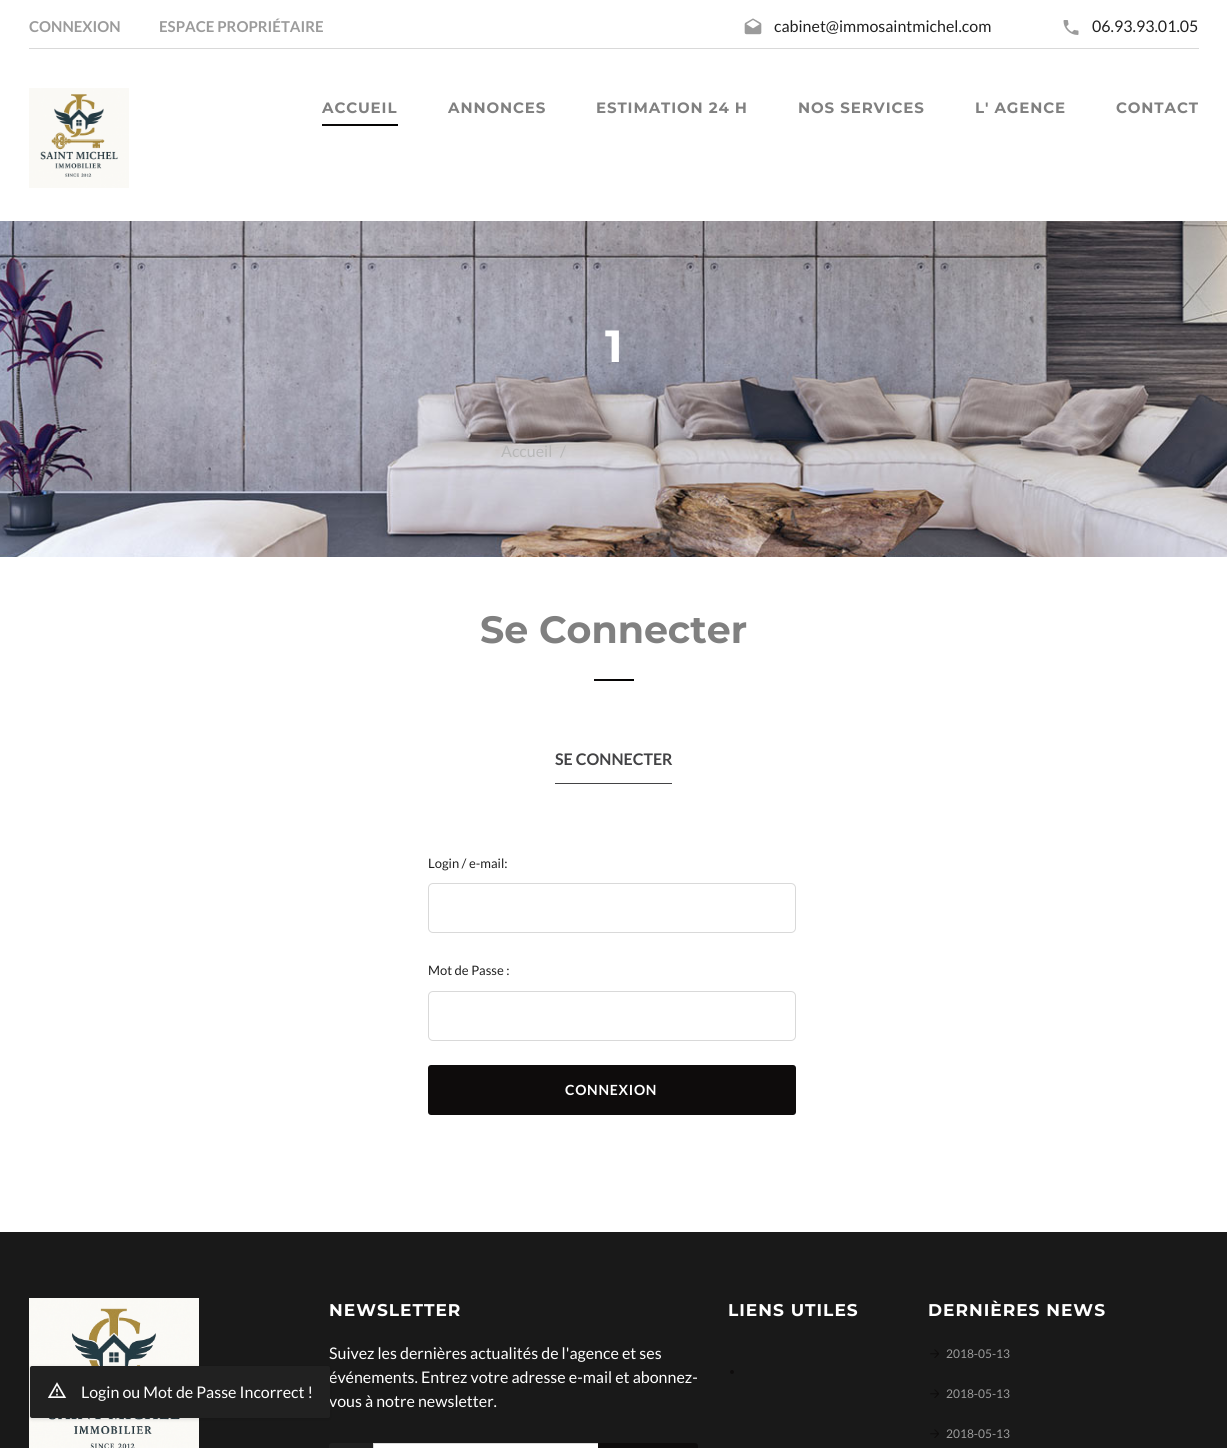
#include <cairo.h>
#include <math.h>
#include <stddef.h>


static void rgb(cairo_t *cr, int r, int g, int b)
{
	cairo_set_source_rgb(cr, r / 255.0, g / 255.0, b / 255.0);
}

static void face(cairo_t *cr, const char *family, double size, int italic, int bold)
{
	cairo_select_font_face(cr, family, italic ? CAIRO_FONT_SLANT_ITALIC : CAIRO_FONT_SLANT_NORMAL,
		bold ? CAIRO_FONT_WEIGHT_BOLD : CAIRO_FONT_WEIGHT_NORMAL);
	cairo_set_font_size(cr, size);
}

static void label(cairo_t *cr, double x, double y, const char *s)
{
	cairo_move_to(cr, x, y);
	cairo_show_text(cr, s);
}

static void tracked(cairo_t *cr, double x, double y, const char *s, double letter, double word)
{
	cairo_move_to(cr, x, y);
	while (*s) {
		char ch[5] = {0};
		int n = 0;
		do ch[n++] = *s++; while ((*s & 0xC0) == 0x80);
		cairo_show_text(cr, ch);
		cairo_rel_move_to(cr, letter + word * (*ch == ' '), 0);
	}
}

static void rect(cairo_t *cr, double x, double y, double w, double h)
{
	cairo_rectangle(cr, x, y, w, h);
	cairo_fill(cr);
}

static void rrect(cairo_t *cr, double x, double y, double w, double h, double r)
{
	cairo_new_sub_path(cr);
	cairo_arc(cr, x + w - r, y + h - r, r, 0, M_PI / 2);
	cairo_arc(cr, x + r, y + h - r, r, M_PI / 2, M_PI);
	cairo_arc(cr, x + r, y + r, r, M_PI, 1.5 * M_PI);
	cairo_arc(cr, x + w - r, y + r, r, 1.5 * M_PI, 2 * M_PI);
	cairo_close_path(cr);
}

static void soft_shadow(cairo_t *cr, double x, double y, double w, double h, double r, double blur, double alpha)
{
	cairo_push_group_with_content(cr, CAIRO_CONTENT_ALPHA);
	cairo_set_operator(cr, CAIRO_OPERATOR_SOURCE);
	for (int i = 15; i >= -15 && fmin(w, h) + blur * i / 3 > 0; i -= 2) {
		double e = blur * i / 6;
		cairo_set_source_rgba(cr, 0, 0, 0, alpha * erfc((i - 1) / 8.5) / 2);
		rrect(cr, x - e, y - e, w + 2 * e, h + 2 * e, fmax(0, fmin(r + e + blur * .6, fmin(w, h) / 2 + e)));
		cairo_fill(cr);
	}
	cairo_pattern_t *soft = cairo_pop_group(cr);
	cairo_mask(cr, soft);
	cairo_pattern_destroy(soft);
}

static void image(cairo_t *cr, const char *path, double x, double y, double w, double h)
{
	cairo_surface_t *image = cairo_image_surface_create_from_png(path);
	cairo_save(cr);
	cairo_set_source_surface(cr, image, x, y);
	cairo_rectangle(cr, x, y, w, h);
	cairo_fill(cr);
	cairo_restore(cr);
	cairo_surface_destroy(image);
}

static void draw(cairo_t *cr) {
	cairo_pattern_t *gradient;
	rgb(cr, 255, 255, 255);
	cairo_paint(cr);
	rgb(cr, 217, 217, 217);
	rect(cr, 29, 48, 1170, 1);
	face(cr, "Lato", 15, 0, 1);
	rgb(cr, 155, 155, 155);
	label(cr, 29, 32, "CONNEXION");
	label(cr, 159, 32, "ESPACE PROPRIÉTAIRE");
	image(cr, "image0.png", 744, 18, 18, 17);
	face(cr, "Lato", 16, 0, 0);
	rgb(cr, 33, 33, 33);
	label(cr, 774, 32, "cabinet@immosaintmichel.com");
	image(cr, "image1.png", 1063, 20, 16, 15);
	label(cr, 1092, 32, "06.93.93.01.05");
	image(cr, "image2.png", 29, 88, 100, 100);
	face(cr, "Montserrat", 15, 0, 1);
	rgb(cr, 128, 128, 128);
	tracked(cr, 322, 113, "ACCUEIL", 0.9, 0);
	gradient = cairo_pattern_create_linear(322, 125, 398, 125);
	cairo_pattern_add_color_stop_rgba(gradient, 0, 0.055, 0.047, 0.047, 1);
	cairo_pattern_add_color_stop_rgba(gradient, 1, 0, 0, 0, 1);
	cairo_set_source(cr, gradient);
	cairo_pattern_destroy(gradient);
	rect(cr, 322, 124, 76, 2);
	rgb(cr, 128, 128, 128);
	tracked(cr, 448, 113, "ANNONCES", 0.9, 0);
	tracked(cr, 596, 113, "ESTIMATION 24 H", 0.9, 0);
	tracked(cr, 798, 113, "NOS SERVICES", 0.9, 0);
	tracked(cr, 975, 113, "L' AGENCE", 0.9, 0);
	tracked(cr, 1116, 113, "CONTACT", 0.9, 0);
	image(cr, "image3.png", 0, 221, 1227, 336);
	face(cr, "Montserrat", 45, 0, 1);
	rgb(cr, 255, 255, 255);
	label(cr, 605, 362, "1");
	face(cr, "Lato", 16, 0, 0);
	rgb(cr, 183, 183, 183);
	label(cr, 501, 457, "Accueil");
	label(cr, 560, 457, "/");
	face(cr, "Montserrat", 38, 0, 1);
	rgb(cr, 128, 128, 128);
	label(cr, 480, 643, "Se Connecter");
	gradient = cairo_pattern_create_linear(594, 680, 634, 680);
	cairo_pattern_add_color_stop_rgba(gradient, 0, 0.055, 0.047, 0.047, 1);
	cairo_pattern_add_color_stop_rgba(gradient, 1, 0, 0, 0, 1);
	cairo_set_source(cr, gradient);
	cairo_pattern_destroy(gradient);
	rect(cr, 594, 679, 40, 2);
	face(cr, "Lato", 16, 0, 1);
	rgb(cr, 67, 67, 69);
	label(cr, 555, 765, "SE CONNECTER");
	rect(cr, 555, 783, 117, 1);
	face(cr, "Lato", 13, 0, 0);
	rgb(cr, 33, 33, 33);
	label(cr, 428, 868, "Login / e-mail:");
	rrect(cr, 428.5, 883.5, 367, 49, 4.5);
	rgb(cr, 217, 217, 217);
	cairo_set_line_width(cr, 1);
	cairo_stroke(cr);
	rgb(cr, 33, 33, 33);
	label(cr, 428, 975, "Mot de Passe :");
	rrect(cr, 428.5, 991.5, 367, 49, 4.5);
	rgb(cr, 217, 217, 217);
	cairo_stroke(cr);
	rgb(cr, 14, 12, 12);
	rrect(cr, 429, 1066, 366, 48, 2);
	cairo_fill_preserve(cr);
	cairo_set_line_width(cr, 2);
	cairo_stroke(cr);
	face(cr, "Lato", 14, 0, 1);
	rgb(cr, 255, 255, 255);
	tracked(cr, 565, 1095, "CONNEXION", 0.75, 0);
	rgb(cr, 25, 25, 25);
	rect(cr, 0, 1232, 1227, 216);
	image(cr, "image4.png", 29, 1298, 170, 150);
	face(cr, "Montserrat", 17, 0, 1);
	rgb(cr, 255, 255, 255);
	tracked(cr, 329, 1316, "NEWSLETTER", 1, 0);
	face(cr, "Lato", 16, 0, 0);
	label(cr, 329, 1359, "Suivez les dernières actualités de l'agence et ses");
	label(cr, 329, 1383, "événements. Entrez votre adresse e-mail et abonnez-");
	label(cr, 329, 1407, "vous à notre newsletter.");
	rgb(cr, 33, 33, 33);
	cairo_new_path(cr);
	cairo_move_to(cr, 332, 1443);
	cairo_line_to(cr, 373, 1443);
	cairo_line_to(cr, 373, 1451);
	cairo_line_to(cr, 332, 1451);
	cairo_curve_to(cr, 330.5, 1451, 329, 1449.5, 329, 1448);
	cairo_line_to(cr, 329, 1446);
	cairo_curve_to(cr, 329, 1444.5, 330.5, 1443, 332, 1443);
	cairo_close_path(cr);
	cairo_fill(cr);
	rgb(cr, 255, 255, 255);
	cairo_rectangle(cr, 373.5, 1443.5, 225, 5);
	cairo_fill_preserve(cr);
	rgb(cr, 217, 217, 217);
	cairo_set_line_width(cr, 1);
	cairo_stroke(cr);
	rgb(cr, 14, 12, 12);
	cairo_new_path(cr);
	cairo_move_to(cr, 598.5, 1443.5);
	cairo_line_to(cr, 695, 1443.5);
	cairo_curve_to(cr, 696.5, 1443.5, 697.5, 1444.5, 697.5, 1446);
	cairo_line_to(cr, 697.5, 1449);
	cairo_curve_to(cr, 697.5, 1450.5, 696.5, 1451.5, 695, 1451.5);
	cairo_line_to(cr, 598.5, 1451.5);
	cairo_close_path(cr);
	cairo_fill_preserve(cr);
	cairo_stroke(cr);
	face(cr, "Montserrat", 17, 0, 1);
	rgb(cr, 255, 255, 255);
	tracked(cr, 728, 1316, "LIENS UTILES", 1, 0);
	rgb(cr, 14, 12, 12);
	cairo_new_path(cr);
	cairo_arc(cr, 732, 1372, 2, 0, 2 * M_PI);
	cairo_fill(cr);
	rgb(cr, 255, 255, 255);
	tracked(cr, 928, 1316, "DERNIÈRES NEWS", 1, 0);
	image(cr, "image5.png", 930, 1349, 9, 9);
	face(cr, "Lato", 12, 0, 0);
	rgb(cr, 155, 155, 155);
	label(cr, 946, 1358, "2018-05-13");
	image(cr, "image5.png", 930, 1389, 9, 9);
	label(cr, 946, 1398, "2018-05-13");
	image(cr, "image5.png", 930, 1429, 9, 9);
	label(cr, 946, 1438, "2018-05-13");
	rgb(cr, 0, 0, 0);
	soft_shadow(cr, 30, 1367, 300, 52, 2, 2, 0.15);
	rgb(cr, 33, 33, 33);
	rrect(cr, 30, 1366, 300, 52, 2);
	cairo_fill(cr);
	image(cr, "image6.png", 47, 1382, 20, 16);
	face(cr, "Lato", 16, 0, 0);
	rgb(cr, 255, 255, 255);
	label(cr, 81, 1398, "Login ou Mot de Passe Incorrect !");
}

int main(void) {
	cairo_surface_t *surface = cairo_image_surface_create(CAIRO_FORMAT_RGB24, 1227, 1448);
	cairo_t *cr = cairo_create(surface);
	cairo_font_options_t *options = cairo_font_options_create();
	cairo_font_options_set_hint_metrics(options, CAIRO_HINT_METRICS_OFF);
	cairo_font_options_set_hint_style(options, CAIRO_HINT_STYLE_NONE);
	cairo_set_font_options(cr, options);
	cairo_set_miter_limit(cr, 4);
	draw(cr);
	cairo_surface_write_to_png(surface, "render.png");
	cairo_font_options_destroy(options);
	cairo_destroy(cr);
	cairo_surface_destroy(surface);
	return 0;
}
